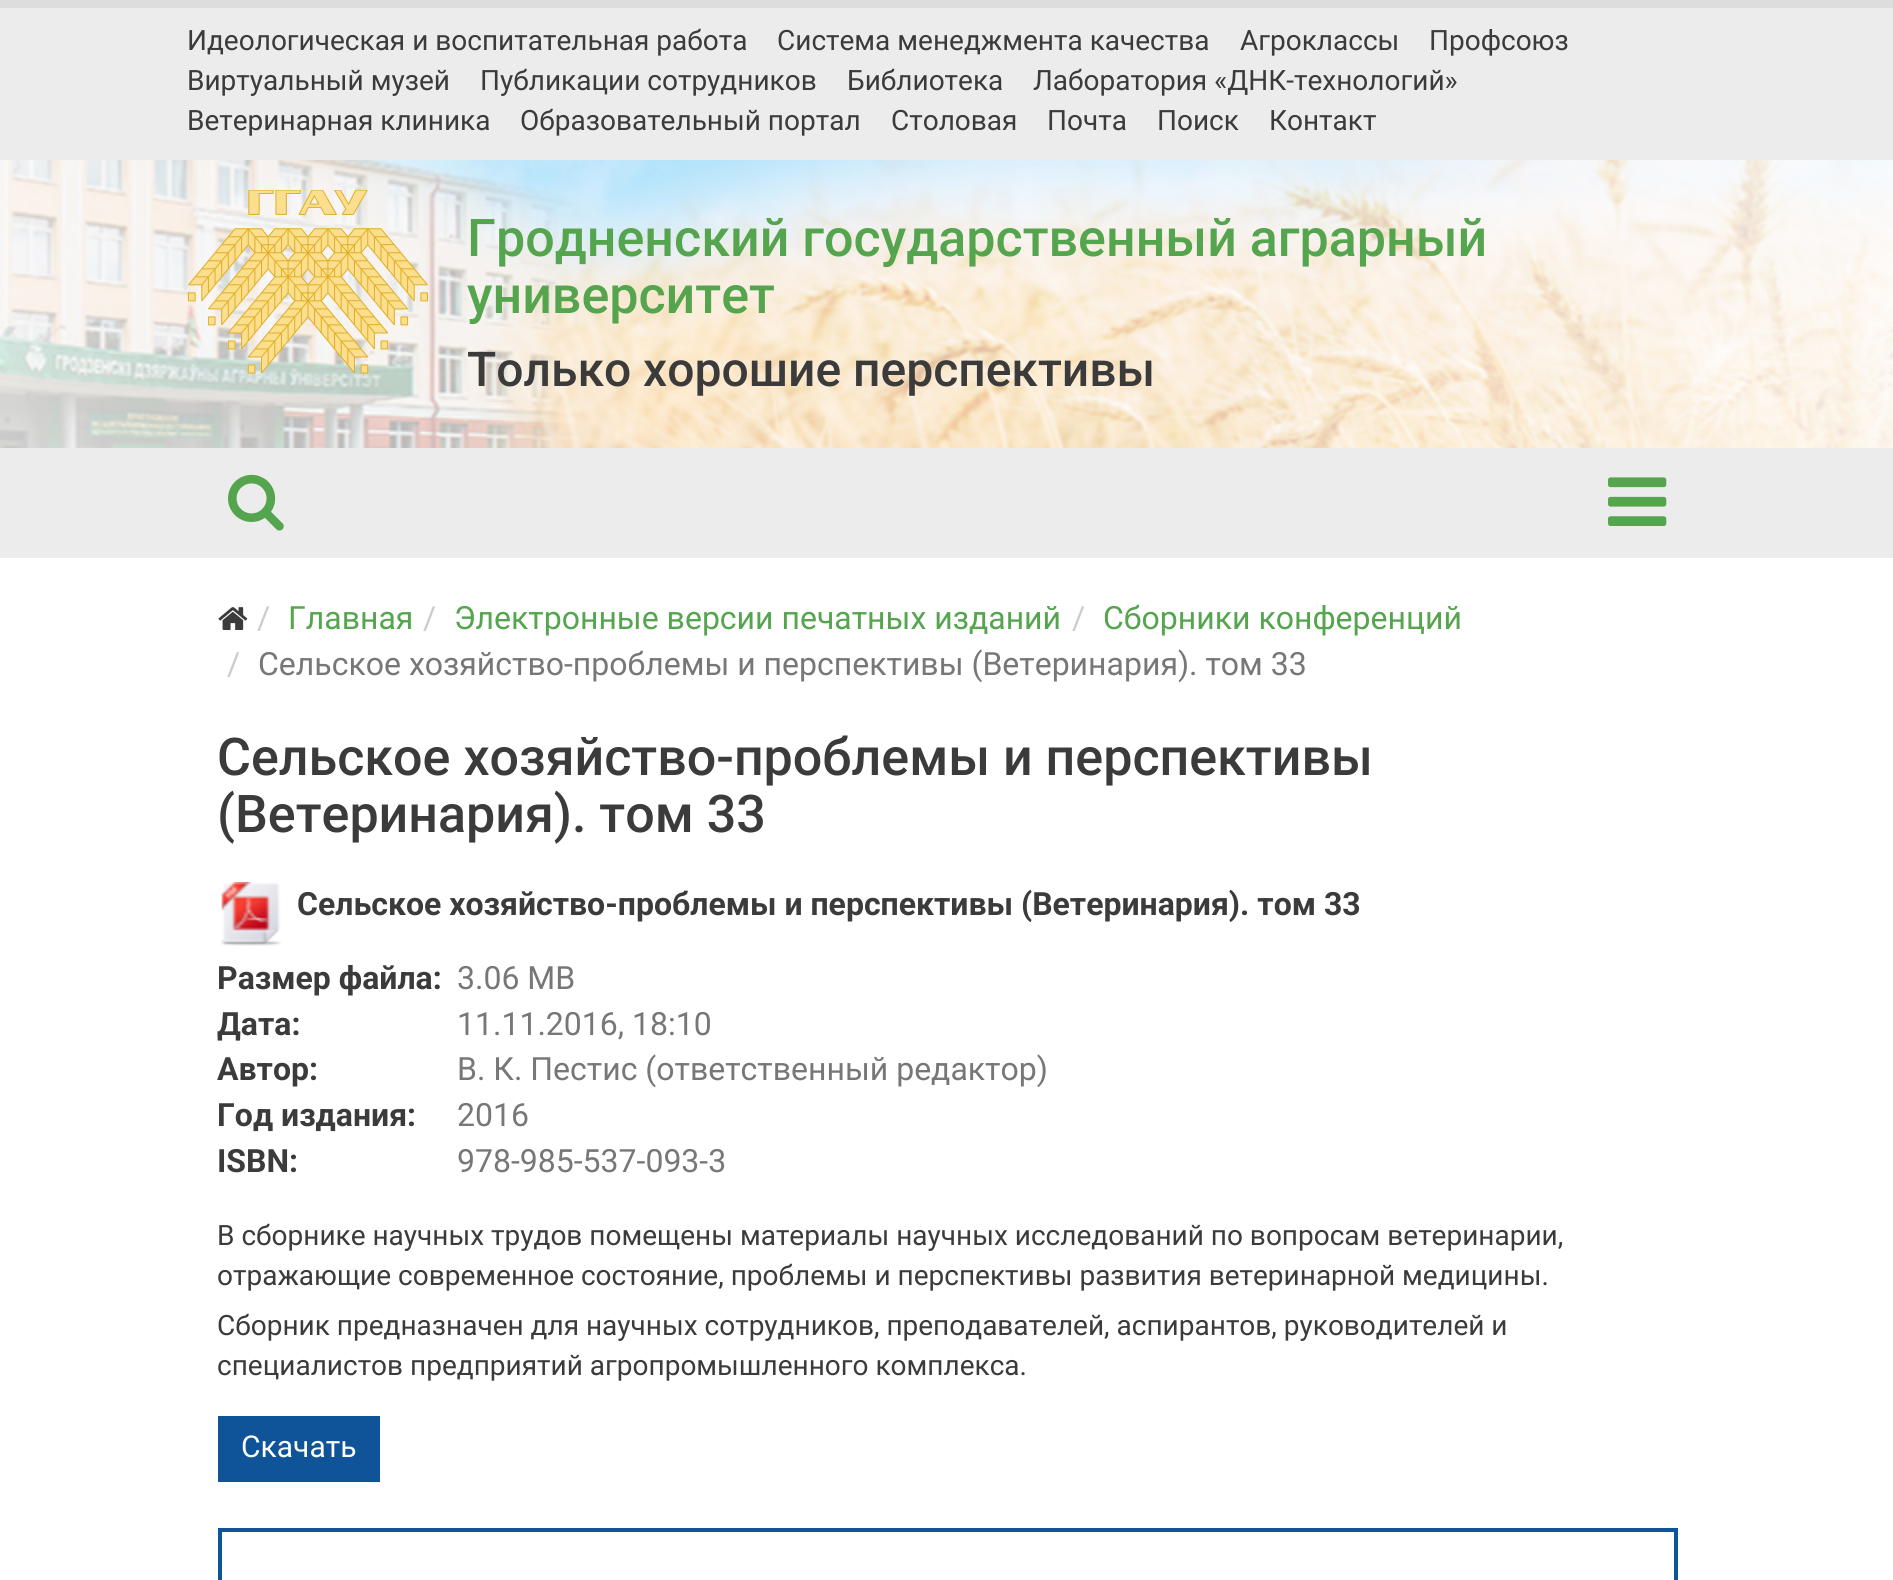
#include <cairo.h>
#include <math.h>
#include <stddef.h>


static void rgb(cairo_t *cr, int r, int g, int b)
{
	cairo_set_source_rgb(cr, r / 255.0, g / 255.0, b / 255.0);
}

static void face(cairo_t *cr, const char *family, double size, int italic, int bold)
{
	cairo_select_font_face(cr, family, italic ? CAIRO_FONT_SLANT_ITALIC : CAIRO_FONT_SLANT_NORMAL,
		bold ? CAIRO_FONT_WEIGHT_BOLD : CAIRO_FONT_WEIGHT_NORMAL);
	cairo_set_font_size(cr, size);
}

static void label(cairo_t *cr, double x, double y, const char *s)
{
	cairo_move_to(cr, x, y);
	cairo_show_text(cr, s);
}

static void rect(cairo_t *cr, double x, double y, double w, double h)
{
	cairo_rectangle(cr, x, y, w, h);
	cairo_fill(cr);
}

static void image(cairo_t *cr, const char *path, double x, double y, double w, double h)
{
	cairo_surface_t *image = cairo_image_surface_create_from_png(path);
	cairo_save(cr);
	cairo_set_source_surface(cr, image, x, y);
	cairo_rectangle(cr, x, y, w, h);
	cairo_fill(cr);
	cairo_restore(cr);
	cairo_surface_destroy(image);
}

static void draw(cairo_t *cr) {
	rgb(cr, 255, 255, 255);
	cairo_paint(cr);
	rgb(cr, 221, 221, 221);
	rect(cr, 0, 0, 1893, 8);
	rgb(cr, 236, 236, 236);
	rect(cr, 0, 8, 1893, 152);
	face(cr, "Roboto", 28, 0, 0);
	rgb(cr, 59, 59, 59);
	label(cr, 187, 50, "Идеологическая и воспитательная работа");
	label(cr, 777, 50, "Система менеджмента качества");
	label(cr, 1240, 50, "Агроклассы");
	label(cr, 1429, 50, "Профсоюз");
	label(cr, 187, 90, "Виртуальный музей");
	label(cr, 480, 90, "Публикации сотрудников");
	label(cr, 847, 90, "Библиотека");
	label(cr, 1033, 90, "Лаборатория «ДНК-технологий»");
	label(cr, 187, 130, "Ветеринарная клиника");
	label(cr, 520, 130, "Образовательный портал");
	label(cr, 891, 130, "Столовая");
	label(cr, 1047, 130, "Почта");
	label(cr, 1157, 130, "Поиск");
	label(cr, 1269, 130, "Контакт");
	image(cr, "image0.png", 0, 160, 1893, 288);
	image(cr, "image1.png", 188, 190, 240, 184);
	face(cr, "Roboto Medium", 52, 0, 0);
	rgb(cr, 85, 164, 78);
	label(cr, 467, 256, "Гродненский государственный аграрный");
	label(cr, 467, 313, "университет");
	face(cr, "Roboto Medium", 48, 0, 0);
	rgb(cr, 59, 59, 59);
	label(cr, 467, 386, "Только хорошие перспективы");
	rgb(cr, 236, 236, 236);
	rect(cr, 0, 448, 1893, 110);
	image(cr, "image2.png", 228, 474, 56, 57);
	image(cr, "image3.png", 1608, 477, 59, 49);
	image(cr, "image4.png", 218, 607, 30, 23);
	face(cr, "Roboto", 32, 0, 0);
	rgb(cr, 204, 204, 204);
	label(cr, 257, 629, "/");
	rgb(cr, 85, 164, 78);
	label(cr, 288, 629, "Главная");
	rgb(cr, 204, 204, 204);
	label(cr, 423, 629, "/");
	rgb(cr, 85, 164, 78);
	label(cr, 454, 629, "Электронные версии печатных изданий");
	rgb(cr, 204, 204, 204);
	label(cr, 1072, 629, "/");
	rgb(cr, 85, 164, 78);
	label(cr, 1103, 629, "Сборники конференций");
	rgb(cr, 204, 204, 204);
	label(cr, 227, 675, "/");
	rgb(cr, 119, 119, 119);
	label(cr, 258, 675, "Сельское хозяйство-проблемы и перспективы (Ветеринария). том 33");
	face(cr, "Roboto Medium", 52, 0, 0);
	rgb(cr, 59, 59, 59);
	label(cr, 217, 775, "Сельское хозяйство-проблемы и перспективы");
	label(cr, 217, 832, "(Ветеринария). том 33");
	image(cr, "image5.png", 221, 882, 60, 64);
	face(cr, "Roboto", 32, 0, 1);
	label(cr, 297, 915, "Сельское хозяйство-проблемы и перспективы (Ветеринария). том 33");
	label(cr, 217, 989, "Размер файла:");
	face(cr, "Roboto", 32, 0, 0);
	rgb(cr, 119, 119, 119);
	label(cr, 457, 989, "3.06 MB");
	face(cr, "Roboto", 32, 0, 1);
	rgb(cr, 59, 59, 59);
	label(cr, 217, 1035, "Дата:");
	face(cr, "Roboto", 32, 0, 0);
	rgb(cr, 119, 119, 119);
	label(cr, 457, 1035, "11.11.2016, 18:10");
	face(cr, "Roboto", 32, 0, 1);
	rgb(cr, 59, 59, 59);
	label(cr, 217, 1080, "Автор:");
	face(cr, "Roboto", 32, 0, 0);
	rgb(cr, 119, 119, 119);
	label(cr, 457, 1080, "В. К. Пестис (ответственный редактор)");
	face(cr, "Roboto", 32, 0, 1);
	rgb(cr, 59, 59, 59);
	label(cr, 217, 1126, "Год издания:");
	face(cr, "Roboto", 32, 0, 0);
	rgb(cr, 119, 119, 119);
	label(cr, 457, 1126, "2016");
	face(cr, "Roboto", 32, 0, 1);
	rgb(cr, 59, 59, 59);
	label(cr, 217, 1172, "ISBN:");
	face(cr, "Roboto", 32, 0, 0);
	rgb(cr, 119, 119, 119);
	label(cr, 457, 1172, "978-985-537-093-3");
	face(cr, "Roboto", 28, 0, 0);
	rgb(cr, 59, 59, 59);
	label(cr, 217, 1245, "В сборнике научных трудов помещены материалы научных исследований по вопросам ветеринарии,");
	label(cr, 217, 1285, "отражающие современное состояние, проблемы и перспективы развития ветеринарной медицины.");
	label(cr, 217, 1335, "Сборник предназначен для научных сотрудников, преподавателей, аспирантов, руководителей и");
	label(cr, 217, 1375, "специалистов предприятий агропромышленного комплекса.");
	rgb(cr, 15, 84, 153);
	rect(cr, 218, 1416, 162, 66);
	face(cr, "Roboto", 30, 0, 0);
	rgb(cr, 255, 255, 255);
	label(cr, 241, 1457, "Скачать");
	cairo_rectangle(cr, 220, 1530, 1456, 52);
	rgb(cr, 15, 84, 153);
	cairo_set_line_width(cr, 4);
	cairo_stroke(cr);
}

int main(void) {
	cairo_surface_t *surface = cairo_image_surface_create(CAIRO_FORMAT_RGB24, 1893, 1580);
	cairo_t *cr = cairo_create(surface);
	cairo_font_options_t *options = cairo_font_options_create();
	cairo_font_options_set_hint_metrics(options, CAIRO_HINT_METRICS_OFF);
	cairo_font_options_set_hint_style(options, CAIRO_HINT_STYLE_NONE);
	cairo_set_font_options(cr, options);
	cairo_set_miter_limit(cr, 4);
	draw(cr);
	cairo_surface_write_to_png(surface, "render.png");
	cairo_font_options_destroy(options);
	cairo_destroy(cr);
	cairo_surface_destroy(surface);
	return 0;
}
